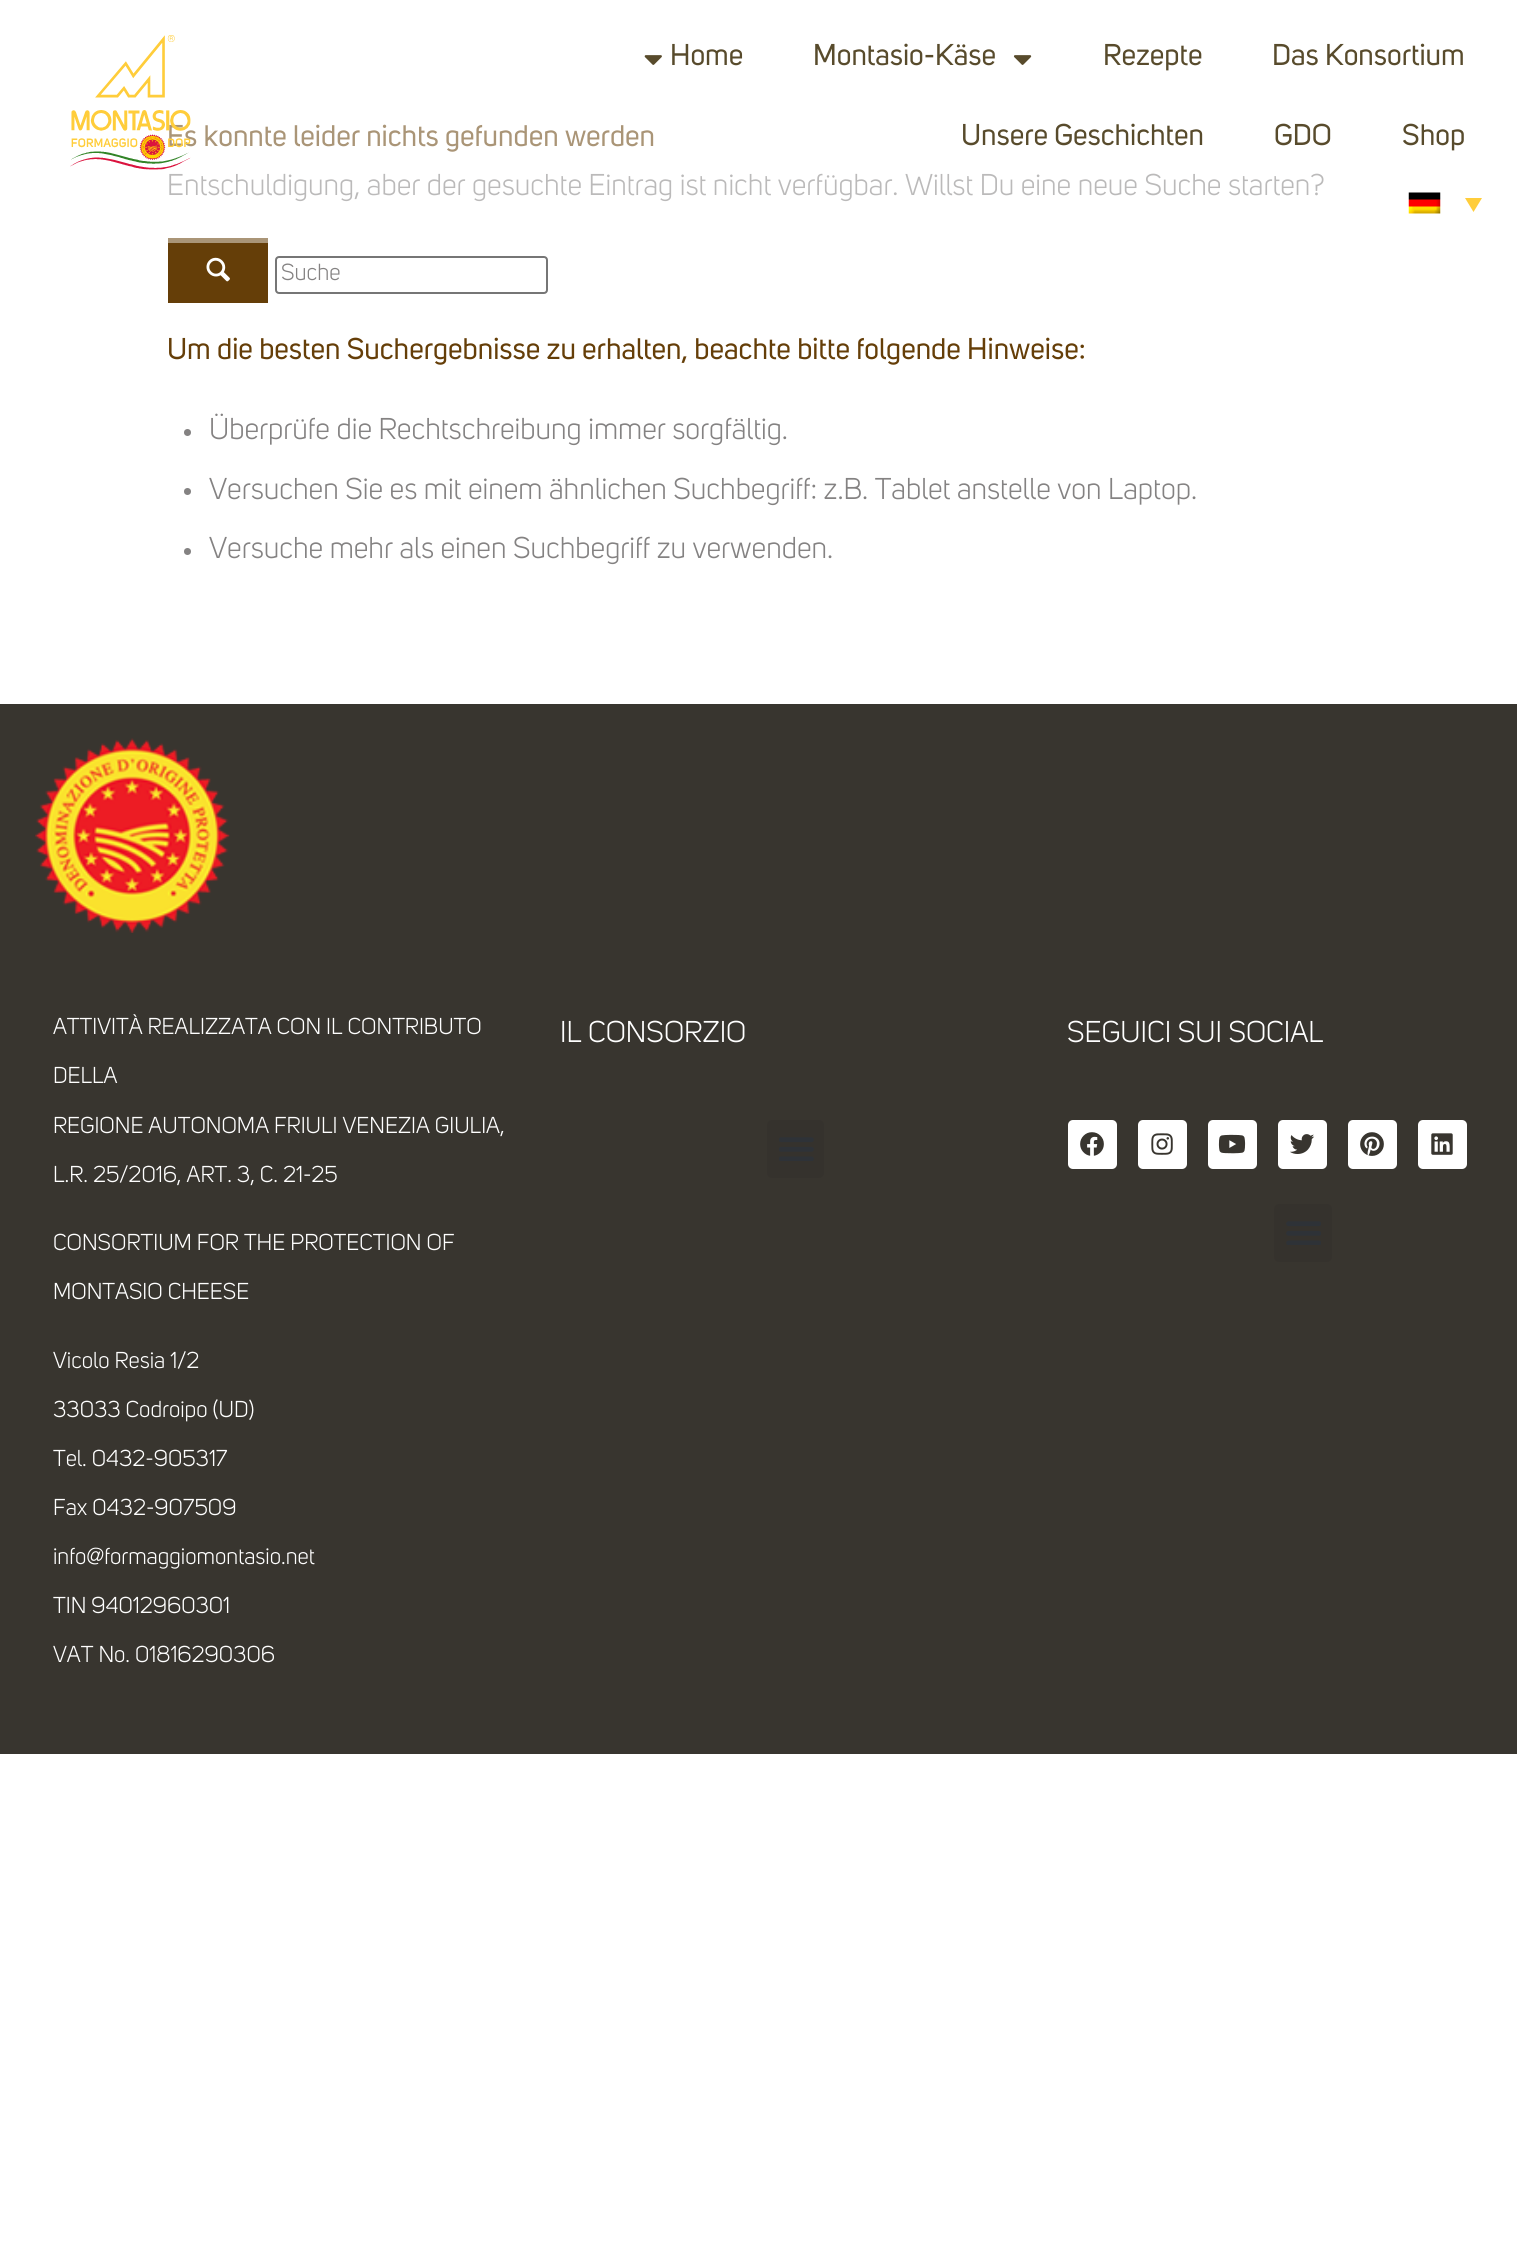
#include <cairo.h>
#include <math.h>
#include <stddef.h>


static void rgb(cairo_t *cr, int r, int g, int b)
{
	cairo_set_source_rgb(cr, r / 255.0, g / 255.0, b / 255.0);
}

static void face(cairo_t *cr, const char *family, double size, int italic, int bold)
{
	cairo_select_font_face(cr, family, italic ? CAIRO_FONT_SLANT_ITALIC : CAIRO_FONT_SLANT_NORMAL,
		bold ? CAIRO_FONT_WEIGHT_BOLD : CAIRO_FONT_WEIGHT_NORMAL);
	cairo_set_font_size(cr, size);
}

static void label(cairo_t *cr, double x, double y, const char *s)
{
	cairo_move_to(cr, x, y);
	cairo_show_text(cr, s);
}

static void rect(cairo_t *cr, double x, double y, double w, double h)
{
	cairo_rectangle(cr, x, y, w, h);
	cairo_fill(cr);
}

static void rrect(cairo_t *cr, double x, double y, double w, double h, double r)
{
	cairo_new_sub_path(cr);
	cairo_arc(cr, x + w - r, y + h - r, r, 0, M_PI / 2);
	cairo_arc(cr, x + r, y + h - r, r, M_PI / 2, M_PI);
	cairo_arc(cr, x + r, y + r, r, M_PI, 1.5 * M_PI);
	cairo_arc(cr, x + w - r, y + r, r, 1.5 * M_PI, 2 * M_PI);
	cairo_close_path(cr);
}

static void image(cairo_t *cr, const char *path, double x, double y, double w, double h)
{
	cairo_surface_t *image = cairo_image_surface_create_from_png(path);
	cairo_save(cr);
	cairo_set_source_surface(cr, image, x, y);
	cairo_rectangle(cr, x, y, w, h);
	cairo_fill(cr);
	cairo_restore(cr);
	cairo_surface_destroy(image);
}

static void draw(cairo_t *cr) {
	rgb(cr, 255, 255, 255);
	cairo_paint(cr);
	face(cr, "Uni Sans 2", 29.75, 0, 0);
	rgb(cr, 170, 149, 119);
	label(cr, 167, 146, "Es konnte leider nichts gefunden werden");
	image(cr, "image0.png", 70, 35, 121, 135);
	image(cr, "image1.png", 644, 55, 18, 10);
	face(cr, "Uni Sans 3", 29.75, 0, 0);
	rgb(cr, 88, 75, 44);
	label(cr, 670, 65, "Home");
	label(cr, 813, 65, "Montasio-Käse");
	image(cr, "image2.png", 1013, 55, 19, 10);
	label(cr, 1103, 65, "Rezepte");
	label(cr, 1272, 65, "Das Konsortium");
	label(cr, 961, 145, "Unsere Geschichten");
	label(cr, 1274, 145, "GDO");
	label(cr, 1402, 145, "Shop");
	image(cr, "image3.png", 1408, 192, 33, 22);
	rgb(cr, 255, 205, 59);
	cairo_new_path(cr);
	cairo_move_to(cr, 1465, 198);
	cairo_line_to(cr, 1482, 198);
	cairo_line_to(cr, 1473.5, 212);
	cairo_close_path(cr);
	cairo_fill(cr);
	face(cr, "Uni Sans", 29.75, 0, 0);
	rgb(cr, 187, 186, 186);
	label(cr, 167, 195, "Entschuldigung, aber der gesuchte Eintrag ist nicht verfügbar. Willst Du eine neue Suche starten?");
	rgb(cr, 101, 62, 8);
	rect(cr, 168, 243, 100, 60);
	rgb(cr, 170, 149, 119);
	rect(cr, 168, 238, 100, 5);
	image(cr, "image4.png", 206, 257, 24, 25);
	rrect(cr, 276, 257, 271, 36, 3);
	rgb(cr, 118, 118, 118);
	cairo_stroke(cr);
	face(cr, "Uni Sans", 23, 0, 0);
	rgb(cr, 132, 130, 130);
	label(cr, 281, 280, "Suche");
	face(cr, "Uni Sans 2", 29.75, 0, 0);
	rgb(cr, 101, 62, 8);
	label(cr, 167, 359, "Um die besten Suchergebnisse zu erhalten, beachte bitte folgende Hinweise:");
	rgb(cr, 132, 130, 130);
	cairo_new_path(cr);
	cairo_arc(cr, 187.5, 432.5, 3.5, 0, 2 * M_PI);
	cairo_fill(cr);
	face(cr, "Uni Sans", 29.75, 0, 0);
	label(cr, 209, 439, "Überprüfe die Rechtschreibung immer sorgfältig.");
	cairo_new_path(cr);
	cairo_arc(cr, 187.5, 491.5, 3.5, 0, 2 * M_PI);
	cairo_fill(cr);
	label(cr, 209, 499, "Versuchen Sie es mit einem ähnlichen Suchbegriff: z.B. Tablet anstelle von Laptop.");
	cairo_new_path(cr);
	cairo_arc(cr, 187.5, 551.5, 3.5, 0, 2 * M_PI);
	cairo_fill(cr);
	label(cr, 209, 558, "Versuche mehr als einen Suchbegriff zu verwenden.");
	rgb(cr, 56, 53, 47);
	rect(cr, 0, 704, 1517, 1050);
	image(cr, "image5.png", 35, 738, 195, 195);
	face(cr, "Uni Sans", 22.75, 0, 0);
	rgb(cr, 255, 255, 255);
	label(cr, 53, 1034, "ATTIVITÀ REALIZZATA CON IL CONTRIBUTO");
	label(cr, 53, 1083, "DELLA");
	label(cr, 53, 1133, "REGIONE AUTONOMA FRIULI VENEZIA GIULIA,");
	label(cr, 53, 1182, "L.R. 25/2016, ART. 3, C. 21-25");
	label(cr, 53, 1250, "CONSORTIUM FOR THE PROTECTION OF");
	label(cr, 53, 1299, "MONTASIO CHEESE");
	label(cr, 53, 1368, "Vicolo Resia 1/2");
	label(cr, 53, 1417, "33033 Codroipo (UD)");
	label(cr, 53, 1466, "Tel. 0432-905317");
	label(cr, 53, 1515, "Fax 0432-907509");
	label(cr, 53, 1564, "info@formaggiomontasio.net");
	label(cr, 53, 1613, "TIN 94012960301");
	label(cr, 53, 1662, "VAT No. 01816290306");
	face(cr, "Uni Sans", 29.75, 0, 0);
	label(cr, 560, 1042, "IL CONSORZIO");
	rgb(cr, 53, 50, 45);
	rrect(cr, 767, 1120, 57, 58, 5);
	cairo_fill(cr);
	image(cr, "image6.png", 779, 1137, 35, 24);
	rgb(cr, 255, 255, 255);
	label(cr, 1067, 1042, "SEGUICI SUI SOCIAL");
	rrect(cr, 1068, 1120, 49, 49, 5);
	cairo_fill(cr);
	image(cr, "image7.png", 1080, 1132, 24, 24);
	rrect(cr, 1138, 1120, 49, 49, 5);
	cairo_fill(cr);
	image(cr, "image8.png", 1151, 1133, 22, 22);
	rrect(cr, 1208, 1120, 49, 49, 5);
	cairo_fill(cr);
	image(cr, "image9.png", 1218, 1134, 28, 20);
	rrect(cr, 1278, 1120, 49, 49, 5);
	cairo_fill(cr);
	image(cr, "image10.png", 1290, 1134, 25, 20);
	rrect(cr, 1348, 1120, 49, 49, 5);
	cairo_fill(cr);
	image(cr, "image11.png", 1360, 1132, 24, 24);
	rrect(cr, 1418, 1120, 49, 49, 5);
	cairo_fill(cr);
	image(cr, "image12.png", 1431, 1133, 22, 22);
	rgb(cr, 53, 50, 45);
	rrect(cr, 1274, 1204, 58, 58, 5);
	cairo_fill(cr);
	image(cr, "image13.png", 1286, 1221, 35, 24);
}

int main(void) {
	cairo_surface_t *surface = cairo_image_surface_create(CAIRO_FORMAT_RGB24, 1517, 2241);
	cairo_t *cr = cairo_create(surface);
	cairo_font_options_t *options = cairo_font_options_create();
	cairo_font_options_set_hint_metrics(options, CAIRO_HINT_METRICS_OFF);
	cairo_font_options_set_hint_style(options, CAIRO_HINT_STYLE_NONE);
	cairo_set_font_options(cr, options);
	cairo_set_miter_limit(cr, 4);
	draw(cr);
	cairo_surface_write_to_png(surface, "render.png");
	cairo_font_options_destroy(options);
	cairo_destroy(cr);
	cairo_surface_destroy(surface);
	return 0;
}
